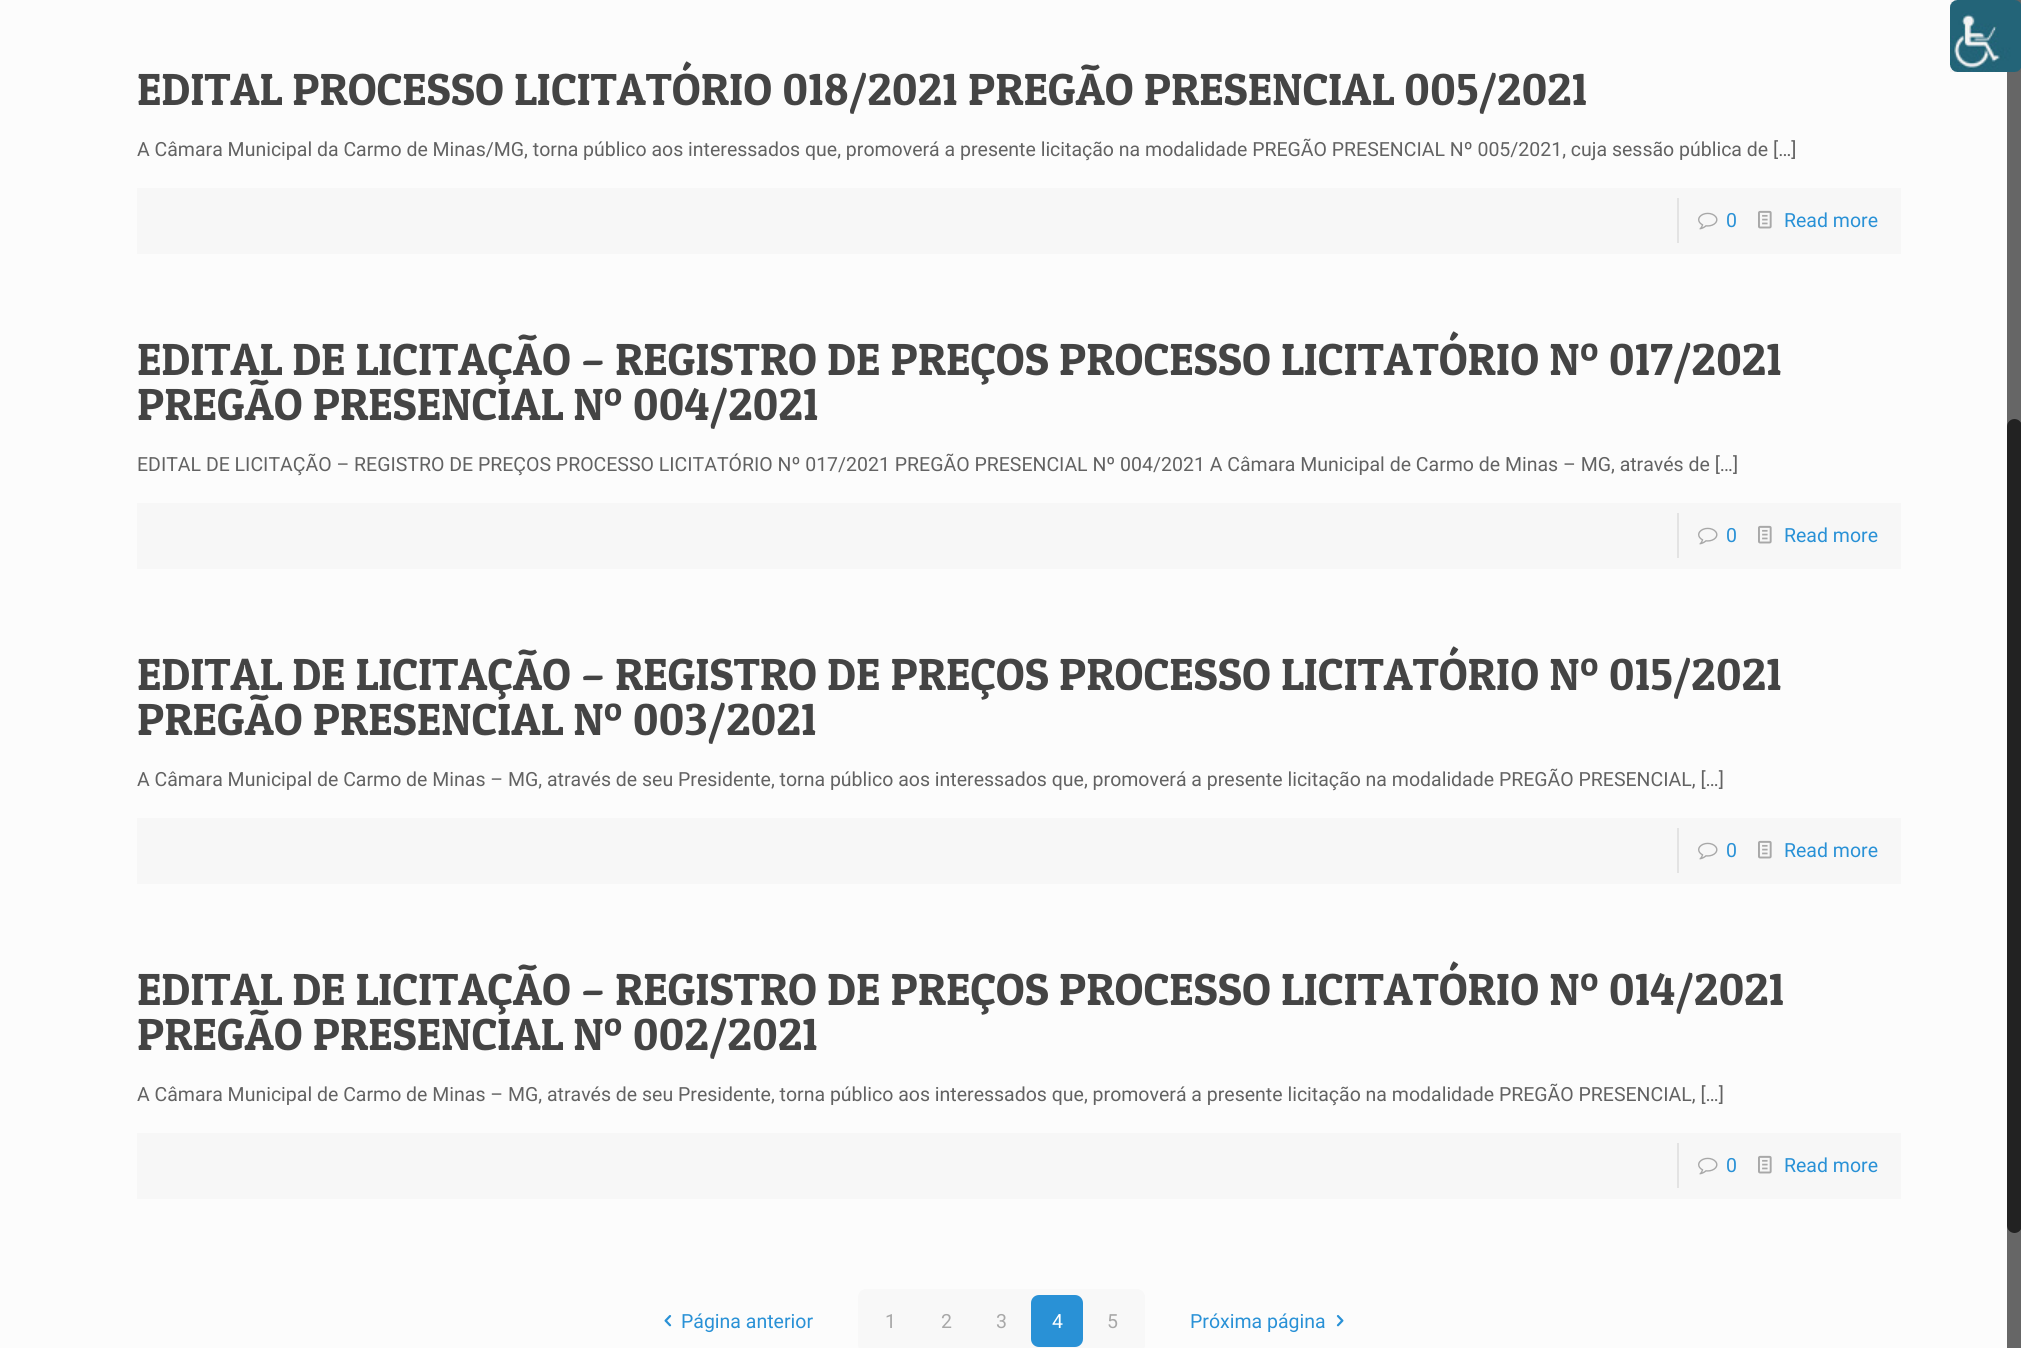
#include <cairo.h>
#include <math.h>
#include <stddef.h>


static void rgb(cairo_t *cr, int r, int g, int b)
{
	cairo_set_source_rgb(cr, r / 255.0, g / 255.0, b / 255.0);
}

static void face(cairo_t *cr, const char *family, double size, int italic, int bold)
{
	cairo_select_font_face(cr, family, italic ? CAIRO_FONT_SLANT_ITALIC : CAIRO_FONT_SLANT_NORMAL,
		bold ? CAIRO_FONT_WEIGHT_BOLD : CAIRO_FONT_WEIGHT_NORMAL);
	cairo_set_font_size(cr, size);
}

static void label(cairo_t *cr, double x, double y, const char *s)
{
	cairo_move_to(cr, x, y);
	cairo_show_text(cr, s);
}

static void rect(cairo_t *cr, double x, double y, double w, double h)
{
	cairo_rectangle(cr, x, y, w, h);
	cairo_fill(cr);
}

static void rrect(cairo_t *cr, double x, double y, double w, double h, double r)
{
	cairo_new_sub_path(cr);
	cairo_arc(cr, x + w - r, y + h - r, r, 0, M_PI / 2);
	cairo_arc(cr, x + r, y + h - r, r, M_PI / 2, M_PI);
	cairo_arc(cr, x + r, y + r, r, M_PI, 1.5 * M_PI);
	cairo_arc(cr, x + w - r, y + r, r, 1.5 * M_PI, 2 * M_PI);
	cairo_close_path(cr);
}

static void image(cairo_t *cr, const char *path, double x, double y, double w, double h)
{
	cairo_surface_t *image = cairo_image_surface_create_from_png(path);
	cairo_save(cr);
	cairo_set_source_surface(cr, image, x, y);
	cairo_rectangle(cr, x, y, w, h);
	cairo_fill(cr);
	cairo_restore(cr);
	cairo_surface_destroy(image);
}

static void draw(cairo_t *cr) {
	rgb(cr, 252, 252, 252);
	cairo_paint(cr);
	rgb(cr, 102, 102, 102);
	rect(cr, 2007, 0, 14, 1348);
	cairo_rectangle(cr, 1951, 1, 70, 70);
	cairo_set_source_rgba(cr, 0, 0, 0, 0.03);
	cairo_stroke(cr);
	image(cr, "image0.png", 1950, 0, 71, 72);
	face(cr, "Patua One", 45, 0, 0);
	rgb(cr, 68, 68, 68);
	label(cr, 137, 105, "EDITAL PROCESSO LICITATÓRIO 018/2021 PREGÃO PRESENCIAL 005/2021");
	face(cr, "Roboto", 19.5, 0, 0);
	rgb(cr, 98, 98, 98);
	label(cr, 137, 156, "A Câmara Municipal da Carmo de Minas/MG, torna público aos interessados que, promoverá a presente licitação na modalidade PREGÃO PRESENCIAL Nº 005/2021, cuja sessão pública de […]");
	rgb(cr, 247, 247, 247);
	rect(cr, 137, 188, 1764, 66);
	rgb(cr, 227, 227, 227);
	rect(cr, 1677, 198, 2, 45);
	image(cr, "image1.png", 1698, 212, 20, 18);
	rgb(cr, 41, 145, 214);
	label(cr, 1726, 227, "0");
	image(cr, "image2.png", 1758, 210, 14, 19);
	label(cr, 1784, 227, "Read more");
	face(cr, "Patua One", 45, 0, 0);
	rgb(cr, 68, 68, 68);
	label(cr, 137, 375, "EDITAL DE LICITAÇÃO – REGISTRO DE PREÇOS PROCESSO LICITATÓRIO Nº 017/2021");
	label(cr, 137, 420, "PREGÃO PRESENCIAL Nº 004/2021");
	face(cr, "Roboto", 19.5, 0, 0);
	rgb(cr, 98, 98, 98);
	label(cr, 137, 471, "EDITAL DE LICITAÇÃO – REGISTRO DE PREÇOS PROCESSO LICITATÓRIO Nº 017/2021 PREGÃO PRESENCIAL Nº 004/2021 A Câmara Municipal de Carmo de Minas – MG, através de […]");
	rgb(cr, 247, 247, 247);
	rect(cr, 137, 503, 1764, 66);
	rgb(cr, 227, 227, 227);
	rect(cr, 1677, 513, 2, 45);
	image(cr, "image1.png", 1698, 527, 20, 18);
	rgb(cr, 41, 145, 214);
	label(cr, 1726, 542, "0");
	image(cr, "image2.png", 1758, 525, 14, 19);
	label(cr, 1784, 542, "Read more");
	face(cr, "Patua One", 45, 0, 0);
	rgb(cr, 68, 68, 68);
	label(cr, 137, 690, "EDITAL DE LICITAÇÃO – REGISTRO DE PREÇOS PROCESSO LICITATÓRIO Nº 015/2021");
	label(cr, 137, 735, "PREGÃO PRESENCIAL Nº 003/2021");
	face(cr, "Roboto", 19.5, 0, 0);
	rgb(cr, 98, 98, 98);
	label(cr, 137, 786, "A Câmara Municipal de Carmo de Minas – MG, através de seu Presidente, torna público aos interessados que, promoverá a presente licitação na modalidade PREGÃO PRESENCIAL, […]");
	rgb(cr, 247, 247, 247);
	rect(cr, 137, 818, 1764, 66);
	rgb(cr, 227, 227, 227);
	rect(cr, 1677, 828, 2, 45);
	image(cr, "image1.png", 1698, 842, 20, 18);
	rgb(cr, 41, 145, 214);
	label(cr, 1726, 857, "0");
	image(cr, "image2.png", 1758, 840, 14, 19);
	label(cr, 1784, 857, "Read more");
	face(cr, "Patua One", 45, 0, 0);
	rgb(cr, 68, 68, 68);
	label(cr, 137, 1005, "EDITAL DE LICITAÇÃO – REGISTRO DE PREÇOS PROCESSO LICITATÓRIO Nº 014/2021");
	label(cr, 137, 1050, "PREGÃO PRESENCIAL Nº 002/2021");
	face(cr, "Roboto", 19.5, 0, 0);
	rgb(cr, 98, 98, 98);
	label(cr, 137, 1101, "A Câmara Municipal de Carmo de Minas – MG, através de seu Presidente, torna público aos interessados que, promoverá a presente licitação na modalidade PREGÃO PRESENCIAL, […]");
	rgb(cr, 247, 247, 247);
	rect(cr, 137, 1133, 1764, 66);
	rgb(cr, 227, 227, 227);
	rect(cr, 1677, 1143, 2, 45);
	image(cr, "image1.png", 1698, 1157, 20, 18);
	rgb(cr, 41, 145, 214);
	label(cr, 1726, 1172, "0");
	image(cr, "image2.png", 1758, 1155, 14, 19);
	label(cr, 1784, 1172, "Read more");
	image(cr, "image3.png", 664, 1315, 8, 12);
	label(cr, 681, 1328, "Página anterior");
	rgb(cr, 248, 248, 248);
	rrect(cr, 858, 1289, 287, 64, 8);
	cairo_fill(cr);
	rgb(cr, 168, 168, 168);
	label(cr, 885, 1328, "1");
	label(cr, 941, 1328, "2");
	label(cr, 996, 1328, "3");
	rgb(cr, 41, 145, 214);
	rrect(cr, 1031, 1295, 52, 52, 8);
	cairo_fill(cr);
	rgb(cr, 255, 255, 255);
	label(cr, 1052, 1328, "4");
	rgb(cr, 168, 168, 168);
	label(cr, 1107, 1328, "5");
	rgb(cr, 41, 145, 214);
	label(cr, 1190, 1328, "Próxima página");
	image(cr, "image4.png", 1336, 1315, 8, 12);
	rgb(cr, 34, 34, 34);
	rrect(cr, 2007, 419, 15, 814, 7.5);
	cairo_fill(cr);
}

int main(void) {
	cairo_surface_t *surface = cairo_image_surface_create(CAIRO_FORMAT_RGB24, 2021, 1348);
	cairo_t *cr = cairo_create(surface);
	cairo_font_options_t *options = cairo_font_options_create();
	cairo_font_options_set_hint_metrics(options, CAIRO_HINT_METRICS_OFF);
	cairo_font_options_set_hint_style(options, CAIRO_HINT_STYLE_NONE);
	cairo_set_font_options(cr, options);
	cairo_set_miter_limit(cr, 4);
	draw(cr);
	cairo_surface_write_to_png(surface, "render.png");
	cairo_font_options_destroy(options);
	cairo_destroy(cr);
	cairo_surface_destroy(surface);
	return 0;
}
